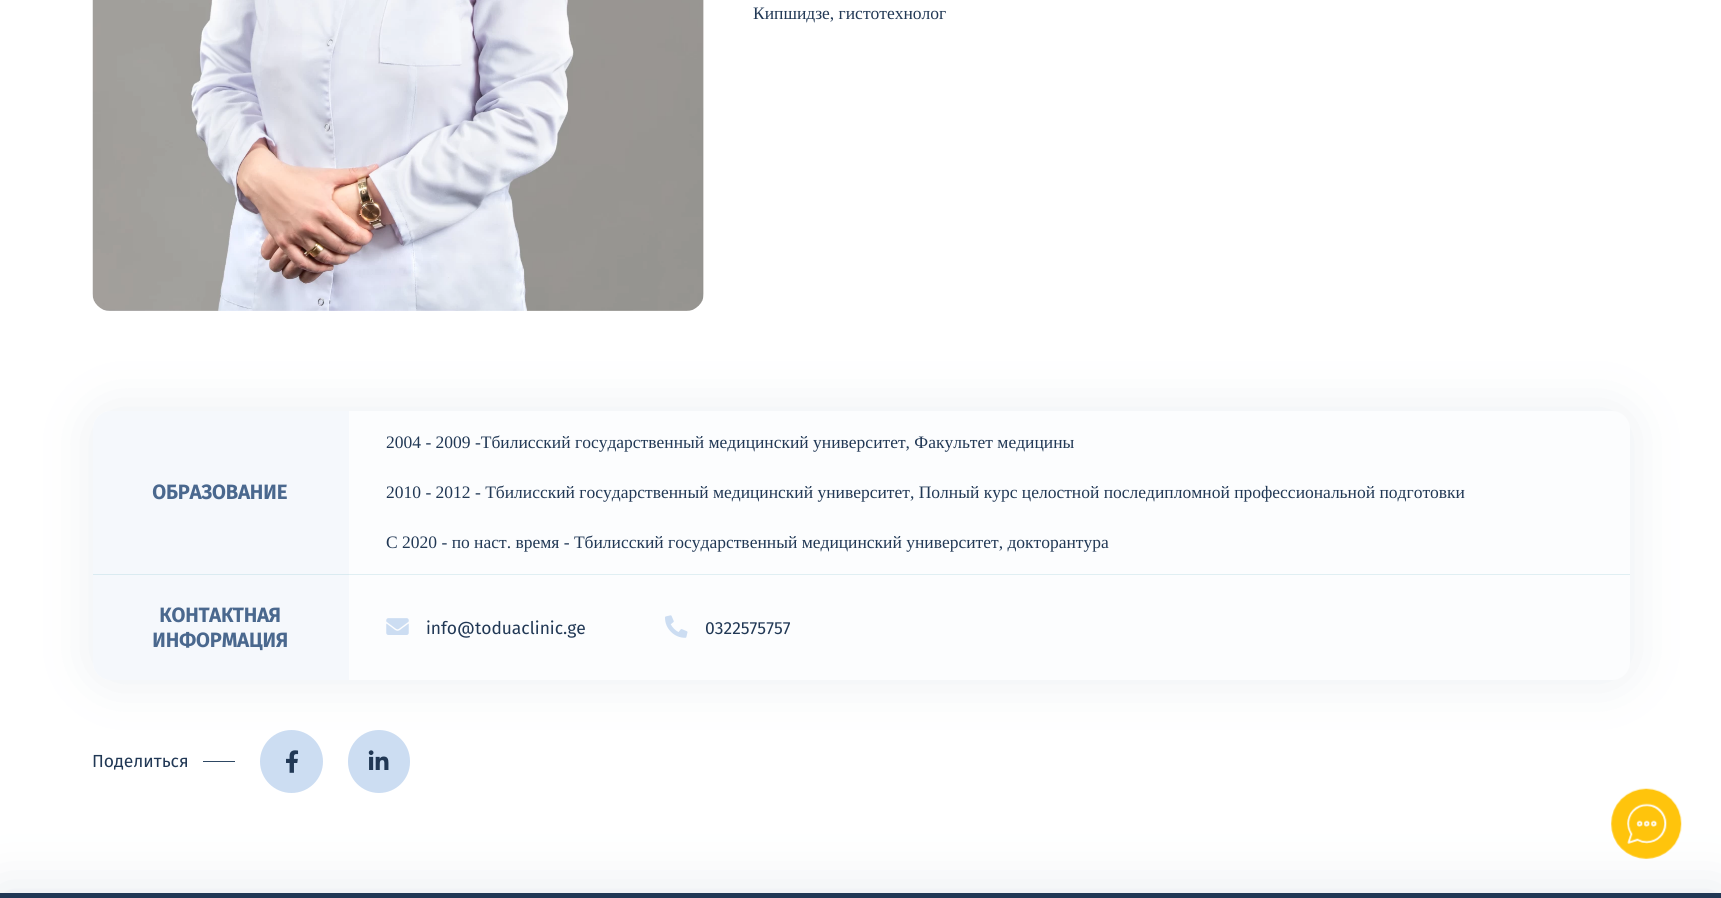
#include <cairo.h>
#include <math.h>
#include <stddef.h>


static void rgb(cairo_t *cr, int r, int g, int b)
{
	cairo_set_source_rgb(cr, r / 255.0, g / 255.0, b / 255.0);
}

static void face(cairo_t *cr, const char *family, double size, int italic, int bold)
{
	cairo_select_font_face(cr, family, italic ? CAIRO_FONT_SLANT_ITALIC : CAIRO_FONT_SLANT_NORMAL,
		bold ? CAIRO_FONT_WEIGHT_BOLD : CAIRO_FONT_WEIGHT_NORMAL);
	cairo_set_font_size(cr, size);
}

static void label(cairo_t *cr, double x, double y, const char *s)
{
	cairo_move_to(cr, x, y);
	cairo_show_text(cr, s);
}

static void rect(cairo_t *cr, double x, double y, double w, double h)
{
	cairo_rectangle(cr, x, y, w, h);
	cairo_fill(cr);
}

static void rrect(cairo_t *cr, double x, double y, double w, double h, double r)
{
	cairo_new_sub_path(cr);
	cairo_arc(cr, x + w - r, y + h - r, r, 0, M_PI / 2);
	cairo_arc(cr, x + r, y + h - r, r, M_PI / 2, M_PI);
	cairo_arc(cr, x + r, y + r, r, M_PI, 1.5 * M_PI);
	cairo_arc(cr, x + w - r, y + r, r, 1.5 * M_PI, 2 * M_PI);
	cairo_close_path(cr);
}

static void soft_shadow(cairo_t *cr, double x, double y, double w, double h, double r, double blur, double alpha)
{
	cairo_push_group_with_content(cr, CAIRO_CONTENT_ALPHA);
	cairo_set_operator(cr, CAIRO_OPERATOR_SOURCE);
	for (int i = 15; i >= -15 && fmin(w, h) + blur * i / 3 > 0; i -= 2) {
		double e = blur * i / 6;
		cairo_set_source_rgba(cr, 0, 0, 0, alpha * erfc((i - 1) / 8.5) / 2);
		rrect(cr, x - e, y - e, w + 2 * e, h + 2 * e, fmax(0, fmin(r + e + blur * .6, fmin(w, h) / 2 + e)));
		cairo_fill(cr);
	}
	cairo_pattern_t *soft = cairo_pop_group(cr);
	cairo_mask(cr, soft);
	cairo_pattern_destroy(soft);
}

static void image(cairo_t *cr, const char *path, double x, double y, double w, double h)
{
	cairo_surface_t *image = cairo_image_surface_create_from_png(path);
	cairo_save(cr);
	cairo_set_source_surface(cr, image, x, y);
	cairo_rectangle(cr, x, y, w, h);
	cairo_fill(cr);
	cairo_restore(cr);
	cairo_surface_destroy(image);
}

static void draw(cairo_t *cr) {
	rgb(cr, 255, 255, 255);
	cairo_paint(cr);
	image(cr, "image0.png", 92, 0, 612, 311);
	face(cr, "Liberation Serif", 17.5, 0, 0);
	rgb(cr, 33, 56, 85);
	label(cr, 753, 19, "Кипшидзе, гистотехнолог");
	rgb(cr, 91, 120, 146);
	soft_shadow(cr, 93, 411, 1537, 269, 18, 27.5, 0.12);
	rgb(cr, 252, 253, 254);
	rrect(cr, 93, 411, 1537, 269, 18);
	cairo_fill(cr);
	rgb(cr, 245, 248, 252);
	cairo_new_path(cr);
	cairo_move_to(cr, 111, 411);
	cairo_line_to(cr, 349, 411);
	cairo_line_to(cr, 349, 575);
	cairo_line_to(cr, 93, 575);
	cairo_line_to(cr, 93, 429);
	cairo_curve_to(cr, 93, 419, 101, 411, 111, 411);
	cairo_close_path(cr);
	cairo_fill(cr);
	rgb(cr, 218, 235, 241);
	rect(cr, 93, 574, 256, 1);
	face(cr, "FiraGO", 20, 0, 1);
	rgb(cr, 74, 104, 142);
	label(cr, 152, 499, "ОБРАЗОВАНИЕ");
	rgb(cr, 224, 239, 243);
	rect(cr, 349, 574, 1281, 1);
	face(cr, "Liberation Serif", 17.5, 0, 0);
	rgb(cr, 33, 56, 85);
	label(cr, 386, 448, "2004 - 2009 -Тбилисский государственный медицинский университет, Факультет медицины");
	label(cr, 386, 498, "2010 - 2012 - Тбилисский государственный медицинский университет, Полный курс целостной последипломной профессиональной подготовки");
	label(cr, 386, 548, "С 2020 - по наст. время - Тбилисский государственный медицинский университет, докторантура");
	rgb(cr, 245, 248, 252);
	cairo_new_path(cr);
	cairo_move_to(cr, 93, 575);
	cairo_line_to(cr, 349, 575);
	cairo_line_to(cr, 349, 680);
	cairo_line_to(cr, 111, 680);
	cairo_curve_to(cr, 101, 680, 93, 672, 93, 662);
	cairo_close_path(cr);
	cairo_fill(cr);
	face(cr, "FiraGO", 20, 0, 1);
	rgb(cr, 74, 104, 142);
	label(cr, 159, 622, "КОНТАКТНАЯ");
	label(cr, 152, 647, "ИНФОРМАЦИЯ");
	image(cr, "image1.png", 386, 618, 23, 17);
	face(cr, "FiraGO", 17.5, 0, 0);
	rgb(cr, 33, 56, 85);
	label(cr, 426, 634, "info@toduaclinic.ge");
	image(cr, "image2.png", 665, 615, 23, 23);
	label(cr, 705, 634, "0322575757");
	label(cr, 92, 767, "Поделиться");
	rgb(cr, 46, 72, 99);
	rect(cr, 203, 761, 32, 1);
	rgb(cr, 204, 221, 242);
	cairo_new_path(cr);
	cairo_arc(cr, 291.5, 761.5, 31.5, 0, 2 * M_PI);
	cairo_fill(cr);
	image(cr, "image3.png", 286, 750, 13, 23);
	rrect(cr, 348, 730, 62, 63, 31);
	cairo_fill(cr);
	image(cr, "image4.png", 368, 750, 21, 20);
	rgb(cr, 228, 232, 237);
	soft_shadow(cr, 0, 893, 1721, 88, 0, 27.5, 1);
	rgb(cr, 33, 56, 85);
	rect(cr, 0, 893, 1721, 5);
	image(cr, "image5.png", 1611, 788, 71, 71);
}

int main(void) {
	cairo_surface_t *surface = cairo_image_surface_create(CAIRO_FORMAT_RGB24, 1721, 898);
	cairo_t *cr = cairo_create(surface);
	cairo_font_options_t *options = cairo_font_options_create();
	cairo_font_options_set_hint_metrics(options, CAIRO_HINT_METRICS_OFF);
	cairo_font_options_set_hint_style(options, CAIRO_HINT_STYLE_NONE);
	cairo_set_font_options(cr, options);
	cairo_set_miter_limit(cr, 4);
	draw(cr);
	cairo_surface_write_to_png(surface, "render.png");
	cairo_font_options_destroy(options);
	cairo_destroy(cr);
	cairo_surface_destroy(surface);
	return 0;
}
